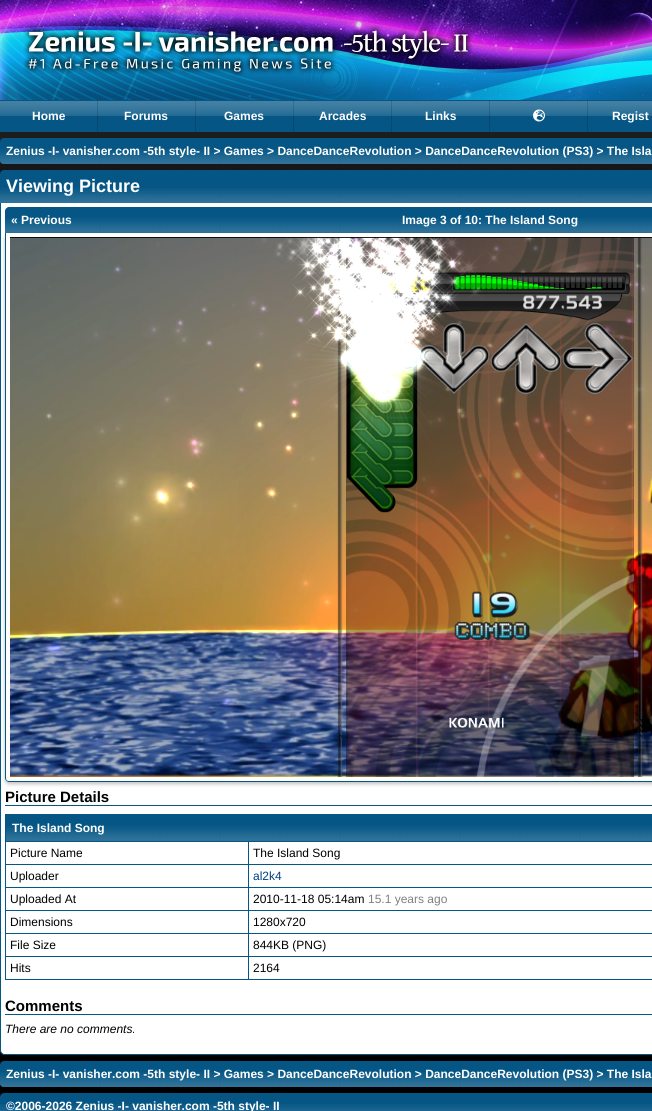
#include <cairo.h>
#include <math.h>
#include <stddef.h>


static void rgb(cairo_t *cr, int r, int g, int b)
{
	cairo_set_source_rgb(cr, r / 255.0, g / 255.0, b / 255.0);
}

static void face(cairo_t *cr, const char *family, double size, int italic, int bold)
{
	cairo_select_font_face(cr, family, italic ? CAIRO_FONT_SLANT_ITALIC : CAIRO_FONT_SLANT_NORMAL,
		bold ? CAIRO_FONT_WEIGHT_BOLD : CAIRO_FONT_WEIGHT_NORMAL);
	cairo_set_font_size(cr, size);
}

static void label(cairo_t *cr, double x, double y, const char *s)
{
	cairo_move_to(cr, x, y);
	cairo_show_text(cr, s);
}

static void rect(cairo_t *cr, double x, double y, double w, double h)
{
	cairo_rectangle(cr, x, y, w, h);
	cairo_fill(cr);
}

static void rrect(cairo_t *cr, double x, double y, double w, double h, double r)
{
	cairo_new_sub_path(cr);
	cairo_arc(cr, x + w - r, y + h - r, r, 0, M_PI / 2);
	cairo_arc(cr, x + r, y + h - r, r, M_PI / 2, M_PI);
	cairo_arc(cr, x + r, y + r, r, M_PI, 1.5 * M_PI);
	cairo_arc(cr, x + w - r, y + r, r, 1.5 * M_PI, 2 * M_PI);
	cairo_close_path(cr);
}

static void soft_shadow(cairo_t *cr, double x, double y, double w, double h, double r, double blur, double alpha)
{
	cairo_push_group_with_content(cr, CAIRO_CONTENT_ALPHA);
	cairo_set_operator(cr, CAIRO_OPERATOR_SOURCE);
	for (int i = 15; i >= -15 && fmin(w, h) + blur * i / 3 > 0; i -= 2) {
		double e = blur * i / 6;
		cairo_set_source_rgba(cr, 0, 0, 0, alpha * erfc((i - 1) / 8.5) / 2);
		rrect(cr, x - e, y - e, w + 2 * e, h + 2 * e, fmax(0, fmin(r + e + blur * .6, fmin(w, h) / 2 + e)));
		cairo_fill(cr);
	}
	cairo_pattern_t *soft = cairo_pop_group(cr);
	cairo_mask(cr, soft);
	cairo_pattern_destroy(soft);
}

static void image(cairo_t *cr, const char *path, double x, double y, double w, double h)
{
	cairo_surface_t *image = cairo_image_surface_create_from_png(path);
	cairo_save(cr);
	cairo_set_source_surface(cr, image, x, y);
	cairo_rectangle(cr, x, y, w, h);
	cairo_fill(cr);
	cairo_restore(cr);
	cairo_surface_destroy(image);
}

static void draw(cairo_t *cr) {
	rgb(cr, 0, 0, 0);
	cairo_paint(cr);
	image(cr, "image0.png", 0, 132, 652, 42);
	image(cr, "image1.png", 0, 0, 652, 100);
	image(cr, "image2.png", 23, 25, 450, 53);
	rgb(cr, 5, 86, 133);
	rect(cr, 0, 100, 652, 32);
	image(cr, "image3.png", 0, 101, 98, 15);
	cairo_set_source_rgba(cr, 0, 0, 0, 0.15);
	rect(cr, 97, 100, 1, 32);
	face(cr, "Liberation Sans", 12, 0, 1);
	rgb(cr, 255, 255, 255);
	label(cr, 32, 120, "Home");
	image(cr, "image3.png", 98, 101, 98, 15);
	cairo_set_source_rgba(cr, 0, 0, 0, 0.15);
	rect(cr, 195, 100, 1, 32);
	rgb(cr, 255, 255, 255);
	label(cr, 124, 120, "Forums");
	image(cr, "image3.png", 196, 101, 98, 15);
	cairo_set_source_rgba(cr, 0, 0, 0, 0.15);
	rect(cr, 293, 100, 1, 32);
	rgb(cr, 255, 255, 255);
	label(cr, 224, 120, "Games");
	image(cr, "image3.png", 294, 101, 98, 15);
	cairo_set_source_rgba(cr, 0, 0, 0, 0.15);
	rect(cr, 391, 100, 1, 32);
	rgb(cr, 255, 255, 255);
	label(cr, 319, 120, "Arcades");
	image(cr, "image3.png", 392, 101, 98, 15);
	cairo_set_source_rgba(cr, 0, 0, 0, 0.15);
	rect(cr, 489, 100, 1, 32);
	rgb(cr, 255, 255, 255);
	label(cr, 425, 120, "Links");
	image(cr, "image3.png", 490, 101, 98, 15);
	cairo_set_source_rgba(cr, 0, 0, 0, 0.15);
	rect(cr, 587, 100, 1, 32);
	image(cr, "image4.png", 533, 109, 12, 13);
	image(cr, "image5.png", 588, 101, 64, 15);
	rgb(cr, 255, 255, 255);
	label(cr, 612, 120, "Regist");
	rgb(cr, 5, 86, 133);
	rrect(cr, 0, 138, 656, 26, 4);
	cairo_fill(cr);
	image(cr, "image6.png", 0, 149, 652, 15);
	rgb(cr, 255, 255, 255);
	label(cr, 6, 155, "Zenius -I- vanisher.com -5th style- II > Games > DanceDanceRevolution > DanceDanceRevolution (PS3) > The Isla");
	rgb(cr, 5, 86, 133);
	cairo_new_path(cr);
	cairo_move_to(cr, 4, 170);
	cairo_line_to(cr, 652, 170);
	cairo_curve_to(cr, 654, 170, 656, 172, 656, 174);
	cairo_line_to(cr, 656, 203);
	cairo_line_to(cr, 0, 203);
	cairo_line_to(cr, 0, 174);
	cairo_curve_to(cr, 0, 172, 2, 170, 4, 170);
	cairo_close_path(cr);
	cairo_fill(cr);
	image(cr, "image7.png", 0, 188, 652, 15);
	face(cr, "Liberation Sans", 18, 0, 1);
	rgb(cr, 255, 255, 255);
	label(cr, 6, 192, "Viewing Picture");
	cairo_new_path(cr);
	cairo_move_to(cr, 1, 203);
	cairo_line_to(cr, 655, 203);
	cairo_line_to(cr, 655, 1051);
	cairo_curve_to(cr, 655, 1052.5, 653.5, 1054, 652, 1054);
	cairo_line_to(cr, 4, 1054);
	cairo_curve_to(cr, 2.5, 1054, 1, 1052.5, 1, 1051);
	cairo_close_path(cr);
	cairo_fill(cr);
	rgb(cr, 5, 86, 133);
	cairo_set_fill_rule(cr, CAIRO_FILL_RULE_EVEN_ODD);
	cairo_new_path(cr);
	cairo_move_to(cr, 0, 203);
	cairo_line_to(cr, 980, 203);
	cairo_line_to(cr, 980, 1051);
	cairo_curve_to(cr, 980, 1053, 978, 1055, 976, 1055);
	cairo_line_to(cr, 4, 1055);
	cairo_curve_to(cr, 2, 1055, 0, 1053, 0, 1051);
	cairo_close_path(cr);
	cairo_move_to(cr, 1, 203);
	cairo_line_to(cr, 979, 203);
	cairo_line_to(cr, 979, 1051);
	cairo_curve_to(cr, 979, 1053, 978, 1054, 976, 1054);
	cairo_line_to(cr, 4, 1054);
	cairo_curve_to(cr, 2, 1054, 1, 1053, 1, 1051);
	cairo_close_path(cr);
	cairo_fill(cr);
	cairo_new_path(cr);
	cairo_move_to(cr, 9, 207);
	cairo_line_to(cr, 652, 207);
	cairo_curve_to(cr, 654, 207, 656, 209, 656, 211);
	cairo_line_to(cr, 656, 233);
	cairo_line_to(cr, 5, 233);
	cairo_line_to(cr, 5, 211);
	cairo_curve_to(cr, 5, 209, 7, 207, 9, 207);
	cairo_close_path(cr);
	cairo_fill(cr);
	image(cr, "image8.png", 5, 218, 647, 15);
	face(cr, "Liberation Sans", 12, 0, 1);
	rgb(cr, 255, 255, 255);
	label(cr, 11, 224, "« Previous");
	label(cr, 402, 224, "Image 3 of 10: The Island Song");
	cairo_save(cr);
	cairo_new_path(cr);
	cairo_move_to(cr, 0, 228);
	cairo_line_to(cr, 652, 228);
	cairo_line_to(cr, 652, 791);
	cairo_line_to(cr, 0, 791);
	cairo_close_path(cr);
	cairo_move_to(cr, 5, 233);
	cairo_line_to(cr, 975, 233);
	cairo_line_to(cr, 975, 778);
	cairo_curve_to(cr, 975, 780, 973, 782, 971, 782);
	cairo_line_to(cr, 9, 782);
	cairo_curve_to(cr, 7, 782, 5, 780, 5, 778);
	cairo_close_path(cr);
	cairo_clip(cr);
	rgb(cr, 0, 0, 0);
	soft_shadow(cr, 5, 235, 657, 549, 4, 2, 0.25);
	cairo_restore(cr);
	rgb(cr, 5, 86, 133);
	cairo_new_path(cr);
	cairo_move_to(cr, 5, 233);
	cairo_line_to(cr, 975, 233);
	cairo_line_to(cr, 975, 778);
	cairo_curve_to(cr, 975, 780, 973, 782, 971, 782);
	cairo_line_to(cr, 9, 782);
	cairo_curve_to(cr, 7, 782, 5, 780, 5, 778);
	cairo_close_path(cr);
	cairo_move_to(cr, 6, 233);
	cairo_line_to(cr, 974, 233);
	cairo_line_to(cr, 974, 778);
	cairo_curve_to(cr, 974, 780, 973, 781, 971, 781);
	cairo_line_to(cr, 9, 781);
	cairo_curve_to(cr, 7, 781, 6, 780, 6, 778);
	cairo_close_path(cr);
	cairo_fill(cr);
	image(cr, "image9.png", 10, 237, 642, 540);
	rect(cr, 5, 805, 647, 1);
	face(cr, "Liberation Sans", 15, 0, 1);
	rgb(cr, 0, 0, 0);
	label(cr, 5, 802, "Picture Details");
	rgb(cr, 5, 86, 133);
	rect(cr, 5, 814, 647, 166);
	image(cr, "image10.png", 6, 826, 646, 15);
	face(cr, "Liberation Sans", 12, 0, 1);
	rgb(cr, 255, 255, 255);
	label(cr, 12, 832, "The Island Song");
	rect(cr, 6, 842, 242, 22);
	face(cr, "Liberation Sans", 12, 0, 0);
	rgb(cr, 0, 0, 0);
	label(cr, 10, 857, "Picture Name");
	rgb(cr, 255, 255, 255);
	rect(cr, 249, 842, 403, 22);
	rgb(cr, 0, 0, 0);
	label(cr, 253, 857, "The Island Song");
	rgb(cr, 255, 255, 255);
	rect(cr, 6, 865, 242, 22);
	rgb(cr, 0, 0, 0);
	label(cr, 10, 880, "Uploader");
	rgb(cr, 255, 255, 255);
	rect(cr, 249, 865, 403, 22);
	rgb(cr, 0, 64, 128);
	label(cr, 253, 880, "al2k4");
	rgb(cr, 255, 255, 255);
	rect(cr, 6, 888, 242, 22);
	rgb(cr, 0, 0, 0);
	label(cr, 10, 903, "Uploaded At");
	rgb(cr, 255, 255, 255);
	rect(cr, 249, 888, 403, 22);
	rgb(cr, 0, 0, 0);
	label(cr, 253, 903, "2010-11-18 05:14am");
	rgb(cr, 128, 128, 128);
	label(cr, 368, 903, "15.1 years ago");
	rgb(cr, 255, 255, 255);
	rect(cr, 6, 911, 242, 22);
	rgb(cr, 0, 0, 0);
	label(cr, 10, 926, "Dimensions");
	rgb(cr, 255, 255, 255);
	rect(cr, 249, 911, 403, 22);
	rgb(cr, 0, 0, 0);
	label(cr, 253, 926, "1280x720");
	rgb(cr, 255, 255, 255);
	rect(cr, 6, 934, 242, 22);
	rgb(cr, 0, 0, 0);
	label(cr, 10, 949, "File Size");
	rgb(cr, 255, 255, 255);
	rect(cr, 249, 934, 403, 22);
	rgb(cr, 0, 0, 0);
	label(cr, 253, 949, "844KB (PNG)");
	rgb(cr, 255, 255, 255);
	rect(cr, 6, 957, 242, 22);
	rgb(cr, 0, 0, 0);
	label(cr, 10, 972, "Hits");
	rgb(cr, 255, 255, 255);
	rect(cr, 249, 957, 403, 22);
	rgb(cr, 0, 0, 0);
	label(cr, 253, 972, "2164");
	rgb(cr, 5, 86, 133);
	rect(cr, 5, 1014, 647, 1);
	face(cr, "Liberation Sans", 15, 0, 1);
	rgb(cr, 0, 0, 0);
	label(cr, 5, 1011, "Comments");
	face(cr, "Liberation Sans", 12, 1, 0);
	label(cr, 5, 1033, "There are no comments.");
	rgb(cr, 5, 86, 133);
	rrect(cr, 0, 1061, 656, 26, 4);
	cairo_fill(cr);
	image(cr, "image11.png", 0, 1072, 652, 15);
	face(cr, "Liberation Sans", 12, 0, 1);
	rgb(cr, 255, 255, 255);
	label(cr, 6, 1078, "Zenius -I- vanisher.com -5th style- II > Games > DanceDanceRevolution > DanceDanceRevolution (PS3) > The Isla");
	rgb(cr, 5, 86, 133);
	cairo_new_path(cr);
	cairo_move_to(cr, 4, 1093);
	cairo_line_to(cr, 652, 1093);
	cairo_curve_to(cr, 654, 1093, 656, 1095, 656, 1097);
	cairo_line_to(cr, 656, 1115);
	cairo_line_to(cr, 0, 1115);
	cairo_line_to(cr, 0, 1097);
	cairo_curve_to(cr, 0, 1095, 2, 1093, 4, 1093);
	cairo_close_path(cr);
	cairo_fill(cr);
	image(cr, "image12.png", 0, 1104, 652, 7);
	rgb(cr, 255, 255, 255);
	label(cr, 6, 1110, "©2006-2026 Zenius -I- vanisher.com -5th style- II");
}

int main(void) {
	cairo_surface_t *surface = cairo_image_surface_create(CAIRO_FORMAT_RGB24, 652, 1111);
	cairo_t *cr = cairo_create(surface);
	cairo_font_options_t *options = cairo_font_options_create();
	cairo_font_options_set_hint_metrics(options, CAIRO_HINT_METRICS_OFF);
	cairo_font_options_set_hint_style(options, CAIRO_HINT_STYLE_NONE);
	cairo_set_font_options(cr, options);
	cairo_set_miter_limit(cr, 4);
	draw(cr);
	cairo_surface_write_to_png(surface, "render.png");
	cairo_font_options_destroy(options);
	cairo_destroy(cr);
	cairo_surface_destroy(surface);
	return 0;
}
